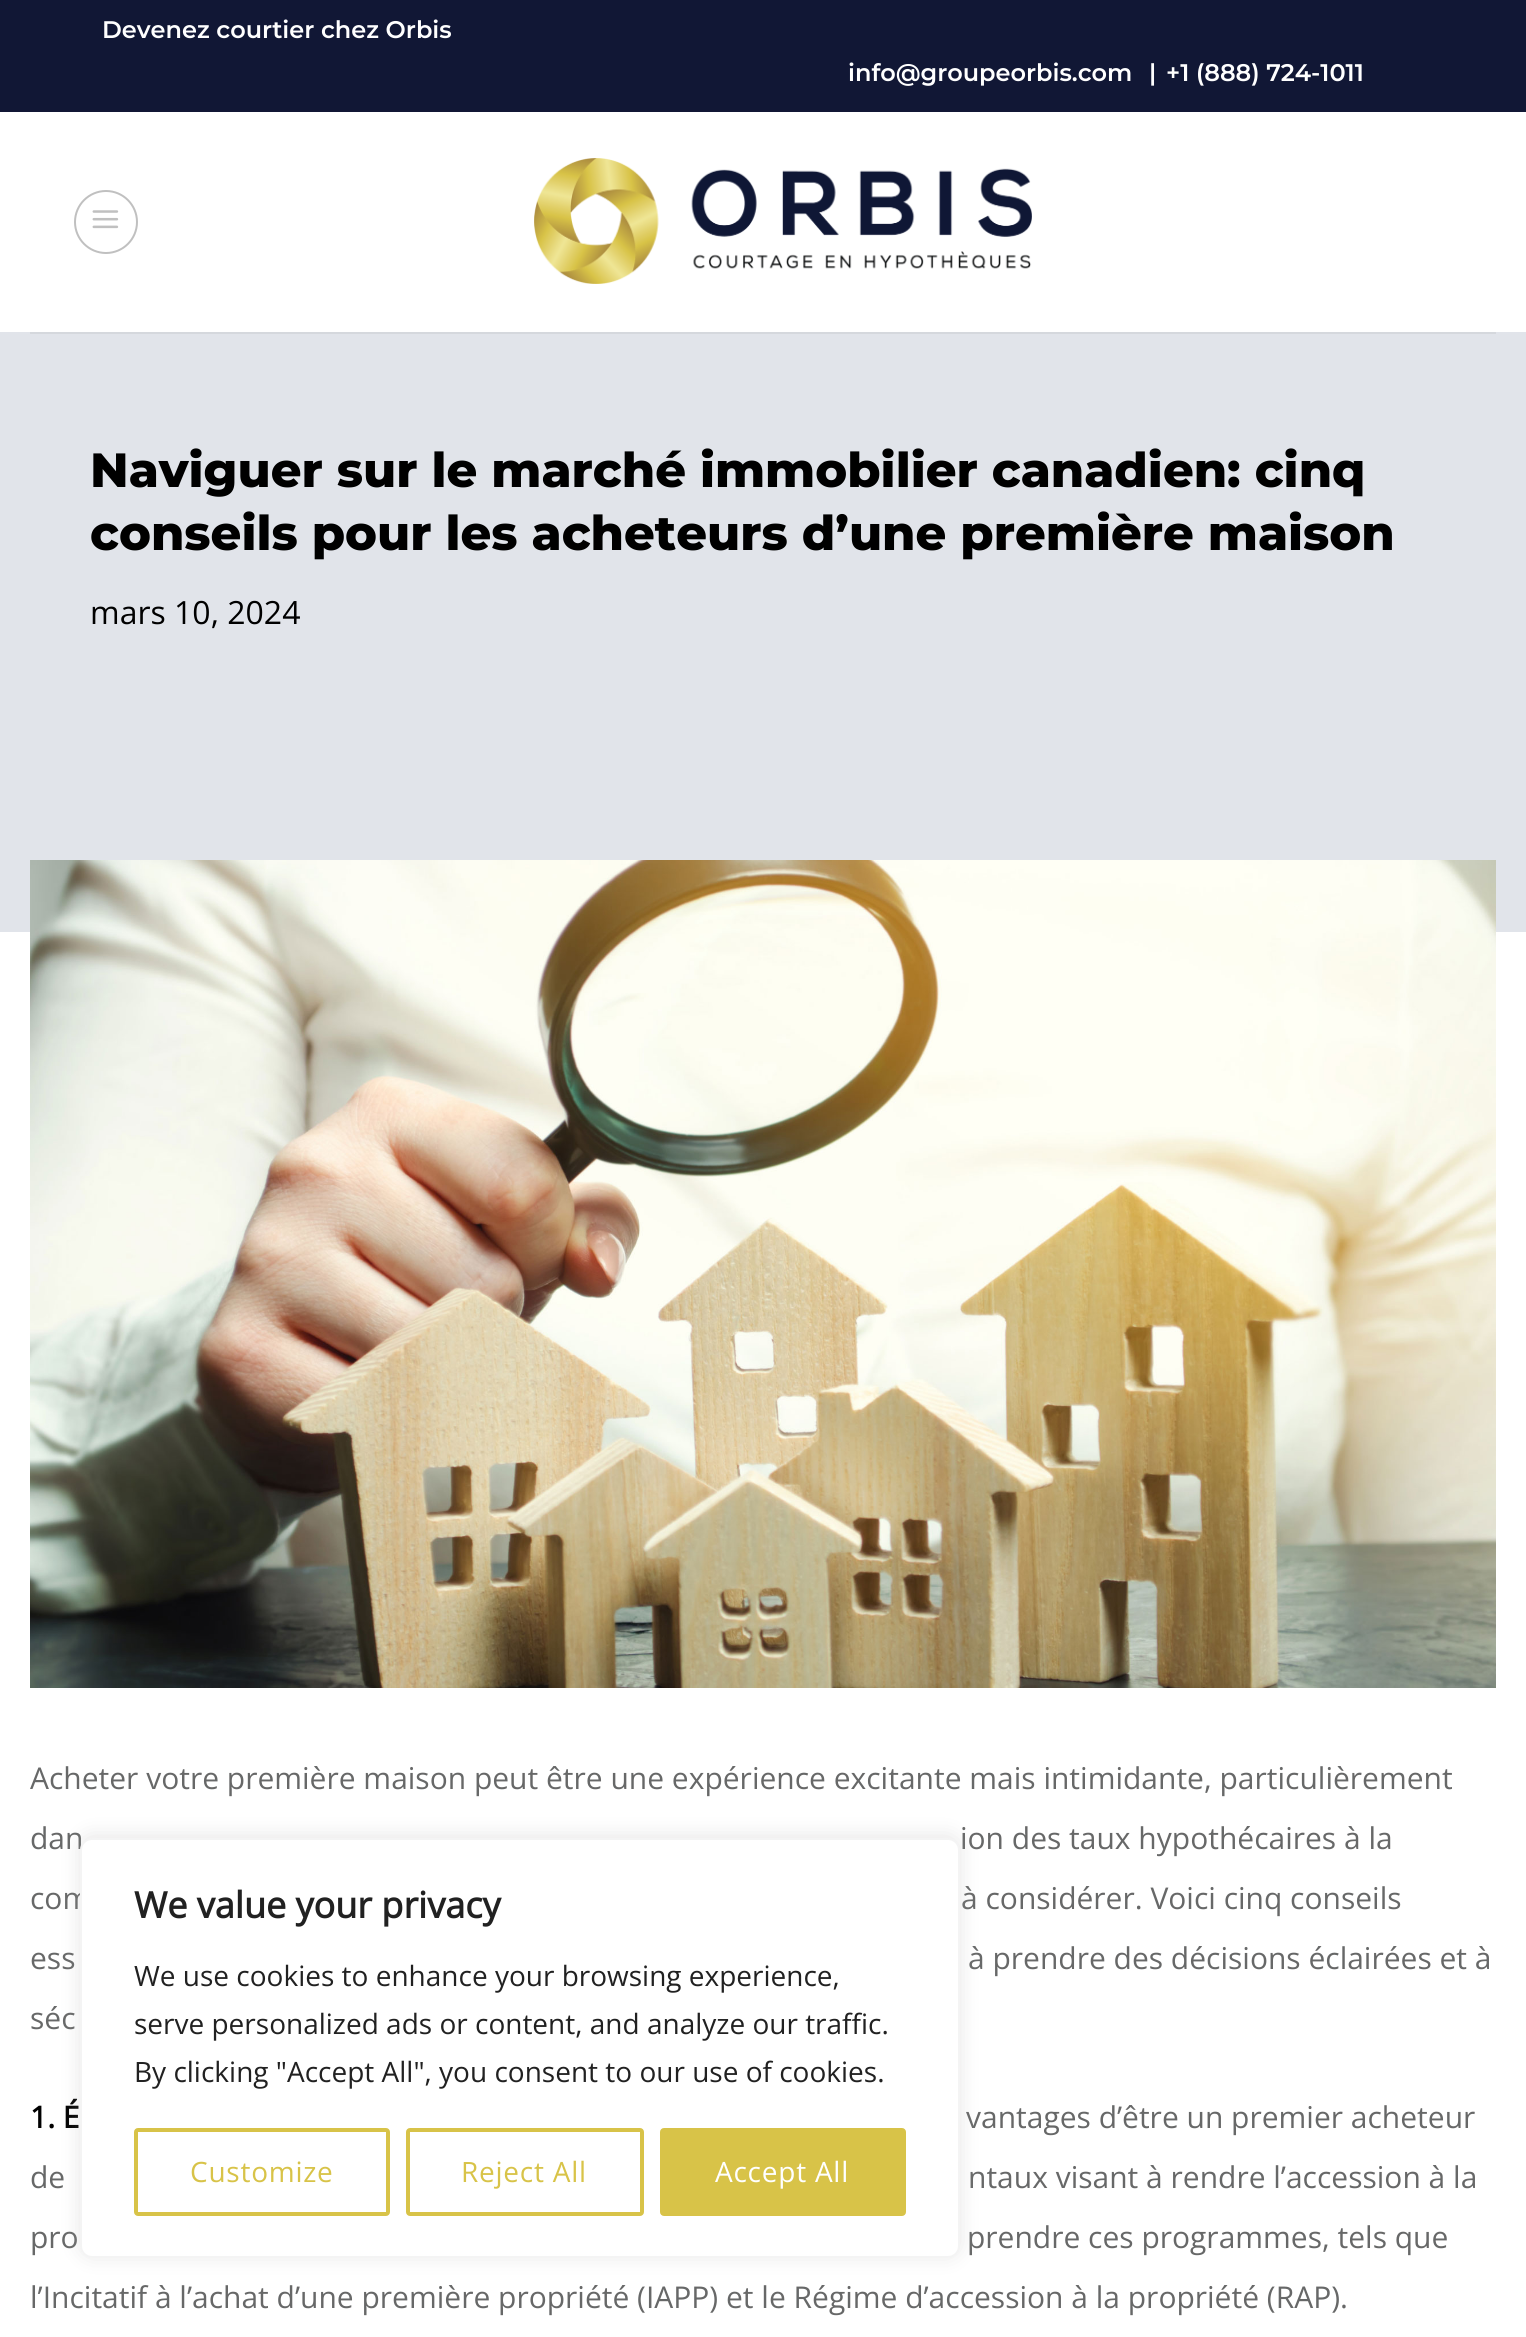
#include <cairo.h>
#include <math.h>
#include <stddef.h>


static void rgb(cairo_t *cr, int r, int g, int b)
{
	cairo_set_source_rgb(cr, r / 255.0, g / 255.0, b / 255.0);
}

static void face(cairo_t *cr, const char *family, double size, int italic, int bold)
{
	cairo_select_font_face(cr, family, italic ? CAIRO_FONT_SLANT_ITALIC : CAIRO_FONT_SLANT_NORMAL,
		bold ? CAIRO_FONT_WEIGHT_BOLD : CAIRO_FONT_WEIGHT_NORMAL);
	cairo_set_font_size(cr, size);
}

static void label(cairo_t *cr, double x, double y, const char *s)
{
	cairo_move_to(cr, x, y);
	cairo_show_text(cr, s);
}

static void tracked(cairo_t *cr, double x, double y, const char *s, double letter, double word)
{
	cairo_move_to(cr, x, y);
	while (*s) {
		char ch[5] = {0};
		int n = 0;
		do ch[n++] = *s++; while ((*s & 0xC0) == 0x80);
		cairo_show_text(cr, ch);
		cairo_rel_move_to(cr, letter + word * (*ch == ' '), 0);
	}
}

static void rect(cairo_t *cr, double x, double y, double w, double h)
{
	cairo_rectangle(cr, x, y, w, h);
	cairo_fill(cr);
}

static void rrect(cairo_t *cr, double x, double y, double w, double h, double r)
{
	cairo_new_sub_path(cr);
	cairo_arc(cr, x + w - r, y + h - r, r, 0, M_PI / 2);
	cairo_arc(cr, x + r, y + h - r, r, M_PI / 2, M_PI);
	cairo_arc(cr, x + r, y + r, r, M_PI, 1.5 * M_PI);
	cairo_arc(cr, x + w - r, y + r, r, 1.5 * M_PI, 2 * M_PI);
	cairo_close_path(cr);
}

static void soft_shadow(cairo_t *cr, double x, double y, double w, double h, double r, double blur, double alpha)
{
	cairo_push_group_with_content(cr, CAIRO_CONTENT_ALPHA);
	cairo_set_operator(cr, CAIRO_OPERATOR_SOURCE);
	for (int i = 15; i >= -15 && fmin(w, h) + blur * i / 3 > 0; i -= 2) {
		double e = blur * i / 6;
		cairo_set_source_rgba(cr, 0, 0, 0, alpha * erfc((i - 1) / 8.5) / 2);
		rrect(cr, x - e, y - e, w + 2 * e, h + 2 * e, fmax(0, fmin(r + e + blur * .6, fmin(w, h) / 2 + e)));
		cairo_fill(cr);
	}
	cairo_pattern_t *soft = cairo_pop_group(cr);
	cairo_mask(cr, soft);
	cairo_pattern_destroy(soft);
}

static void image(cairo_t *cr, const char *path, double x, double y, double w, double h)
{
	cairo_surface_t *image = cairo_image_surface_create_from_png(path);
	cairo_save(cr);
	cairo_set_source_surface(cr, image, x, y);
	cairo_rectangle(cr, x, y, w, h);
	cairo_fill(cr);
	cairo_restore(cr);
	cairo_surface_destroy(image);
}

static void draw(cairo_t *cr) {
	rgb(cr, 255, 255, 255);
	cairo_paint(cr);
	rgb(cr, 17, 23, 53);
	rect(cr, 0, 0, 1526, 112);
	face(cr, "Montserrat SemiBold", 24, 0, 0);
	rgb(cr, 255, 255, 255);
	label(cr, 102, 38, "Devenez courtier chez Orbis");
	label(cr, 848, 81, "info@groupeorbis.com");
	label(cr, 1149, 81, "|");
	label(cr, 1166, 81, "+1 (888) 724-1011");
	cairo_new_path(cr);
	cairo_arc(cr, 106, 222, 31, 0, 2 * M_PI);
	rgb(cr, 192, 192, 192);
	cairo_stroke(cr);
	image(cr, "image0.png", 92, 210, 27, 19);
	image(cr, "image1.png", 534, 158, 498, 126);
	rgb(cr, 225, 228, 234);
	rect(cr, 0, 332, 1526, 600);
	rgb(cr, 213, 216, 221);
	rect(cr, 30, 332, 1466, 2);
	face(cr, "Montserrat ExtraBold", 48, 0, 0);
	rgb(cr, 0, 0, 0);
	label(cr, 90, 487, "Naviguer sur le marché immobilier canadien: cinq");
	label(cr, 90, 550, "conseils pour les acheteurs d’une première maison");
	face(cr, "Open Sans", 32, 0, 0);
	label(cr, 90, 624, "mars 10, 2024");
	image(cr, "image2.png", 30, 860, 1466, 828);
	face(cr, "Open Sans", 30, 0, 0);
	rgb(cr, 103, 104, 104);
	label(cr, 30, 1789, "Acheter votre première maison peut être une expérience excitante mais intimidante, particulièrement");
	label(cr, 30, 1849, "dan");
	label(cr, 960, 1849, "ion des taux hypothécaires à la");
	label(cr, 30, 1909, "com");
	label(cr, 961, 1909, "à considérer. Voici cinq conseils");
	label(cr, 30, 1969, "ess");
	label(cr, 968, 1969, "à prendre des décisions éclairées et à");
	label(cr, 30, 2029, "séc");
	face(cr, "Open Sans", 30, 0, 1);
	rgb(cr, 0, 0, 0);
	label(cr, 30, 2128, "1. É");
	face(cr, "Open Sans", 30, 0, 0);
	rgb(cr, 103, 104, 104);
	label(cr, 966, 2128, "vantages d’être un premier acheteur");
	label(cr, 30, 2188, "de");
	label(cr, 968, 2188, "ntaux visant à rendre l’accession à la");
	label(cr, 30, 2248, "pro");
	label(cr, 967, 2248, "prendre ces programmes, tels que");
	label(cr, 30, 2308, "l’Incitatif à l’achat d’une première propriété (IAPP) et le Régime d’accession à la propriété (RAP).");
	rgb(cr, 172, 171, 171);
	soft_shadow(cr, 80, 1836, 880, 420, 12, 10, 0.3);
	rgb(cr, 255, 255, 255);
	rrect(cr, 81, 1839, 878, 418, 11);
	cairo_fill_preserve(cr);
	rgb(cr, 244, 244, 244);
	cairo_stroke(cr);
	face(cr, "Open Sans", 36, 0, 1);
	rgb(cr, 33, 33, 33);
	label(cr, 134, 1918, "We value your privacy");
	face(cr, "Open Sans", 28, 0, 0);
	label(cr, 134, 1986, "We use cookies to enhance your browsing experience,");
	label(cr, 134, 2034, "serve personalized ads or content, and analyze our traffic.");
	label(cr, 134, 2082, "By clicking \"Accept All\", you consent to our use of cookies.");
	rrect(cr, 136, 2130, 252, 84, 2);
	rgb(cr, 216, 195, 72);
	cairo_set_line_width(cr, 4);
	cairo_stroke(cr);
	tracked(cr, 190, 2182, "Customize", 0.75, 0);
	rrect(cr, 408, 2130, 234, 84, 2);
	cairo_stroke(cr);
	tracked(cr, 461, 2182, "Reject All", 0.75, 0);
	rrect(cr, 662, 2130, 242, 84, 2);
	cairo_fill_preserve(cr);
	cairo_stroke(cr);
	rgb(cr, 255, 255, 255);
	tracked(cr, 715, 2182, "Accept All", 0.75, 0);
}

int main(void) {
	cairo_surface_t *surface = cairo_image_surface_create(CAIRO_FORMAT_RGB24, 1526, 2337);
	cairo_t *cr = cairo_create(surface);
	cairo_font_options_t *options = cairo_font_options_create();
	cairo_font_options_set_hint_metrics(options, CAIRO_HINT_METRICS_OFF);
	cairo_font_options_set_hint_style(options, CAIRO_HINT_STYLE_NONE);
	cairo_set_font_options(cr, options);
	cairo_set_miter_limit(cr, 4);
	draw(cr);
	cairo_surface_write_to_png(surface, "render.png");
	cairo_font_options_destroy(options);
	cairo_destroy(cr);
	cairo_surface_destroy(surface);
	return 0;
}
